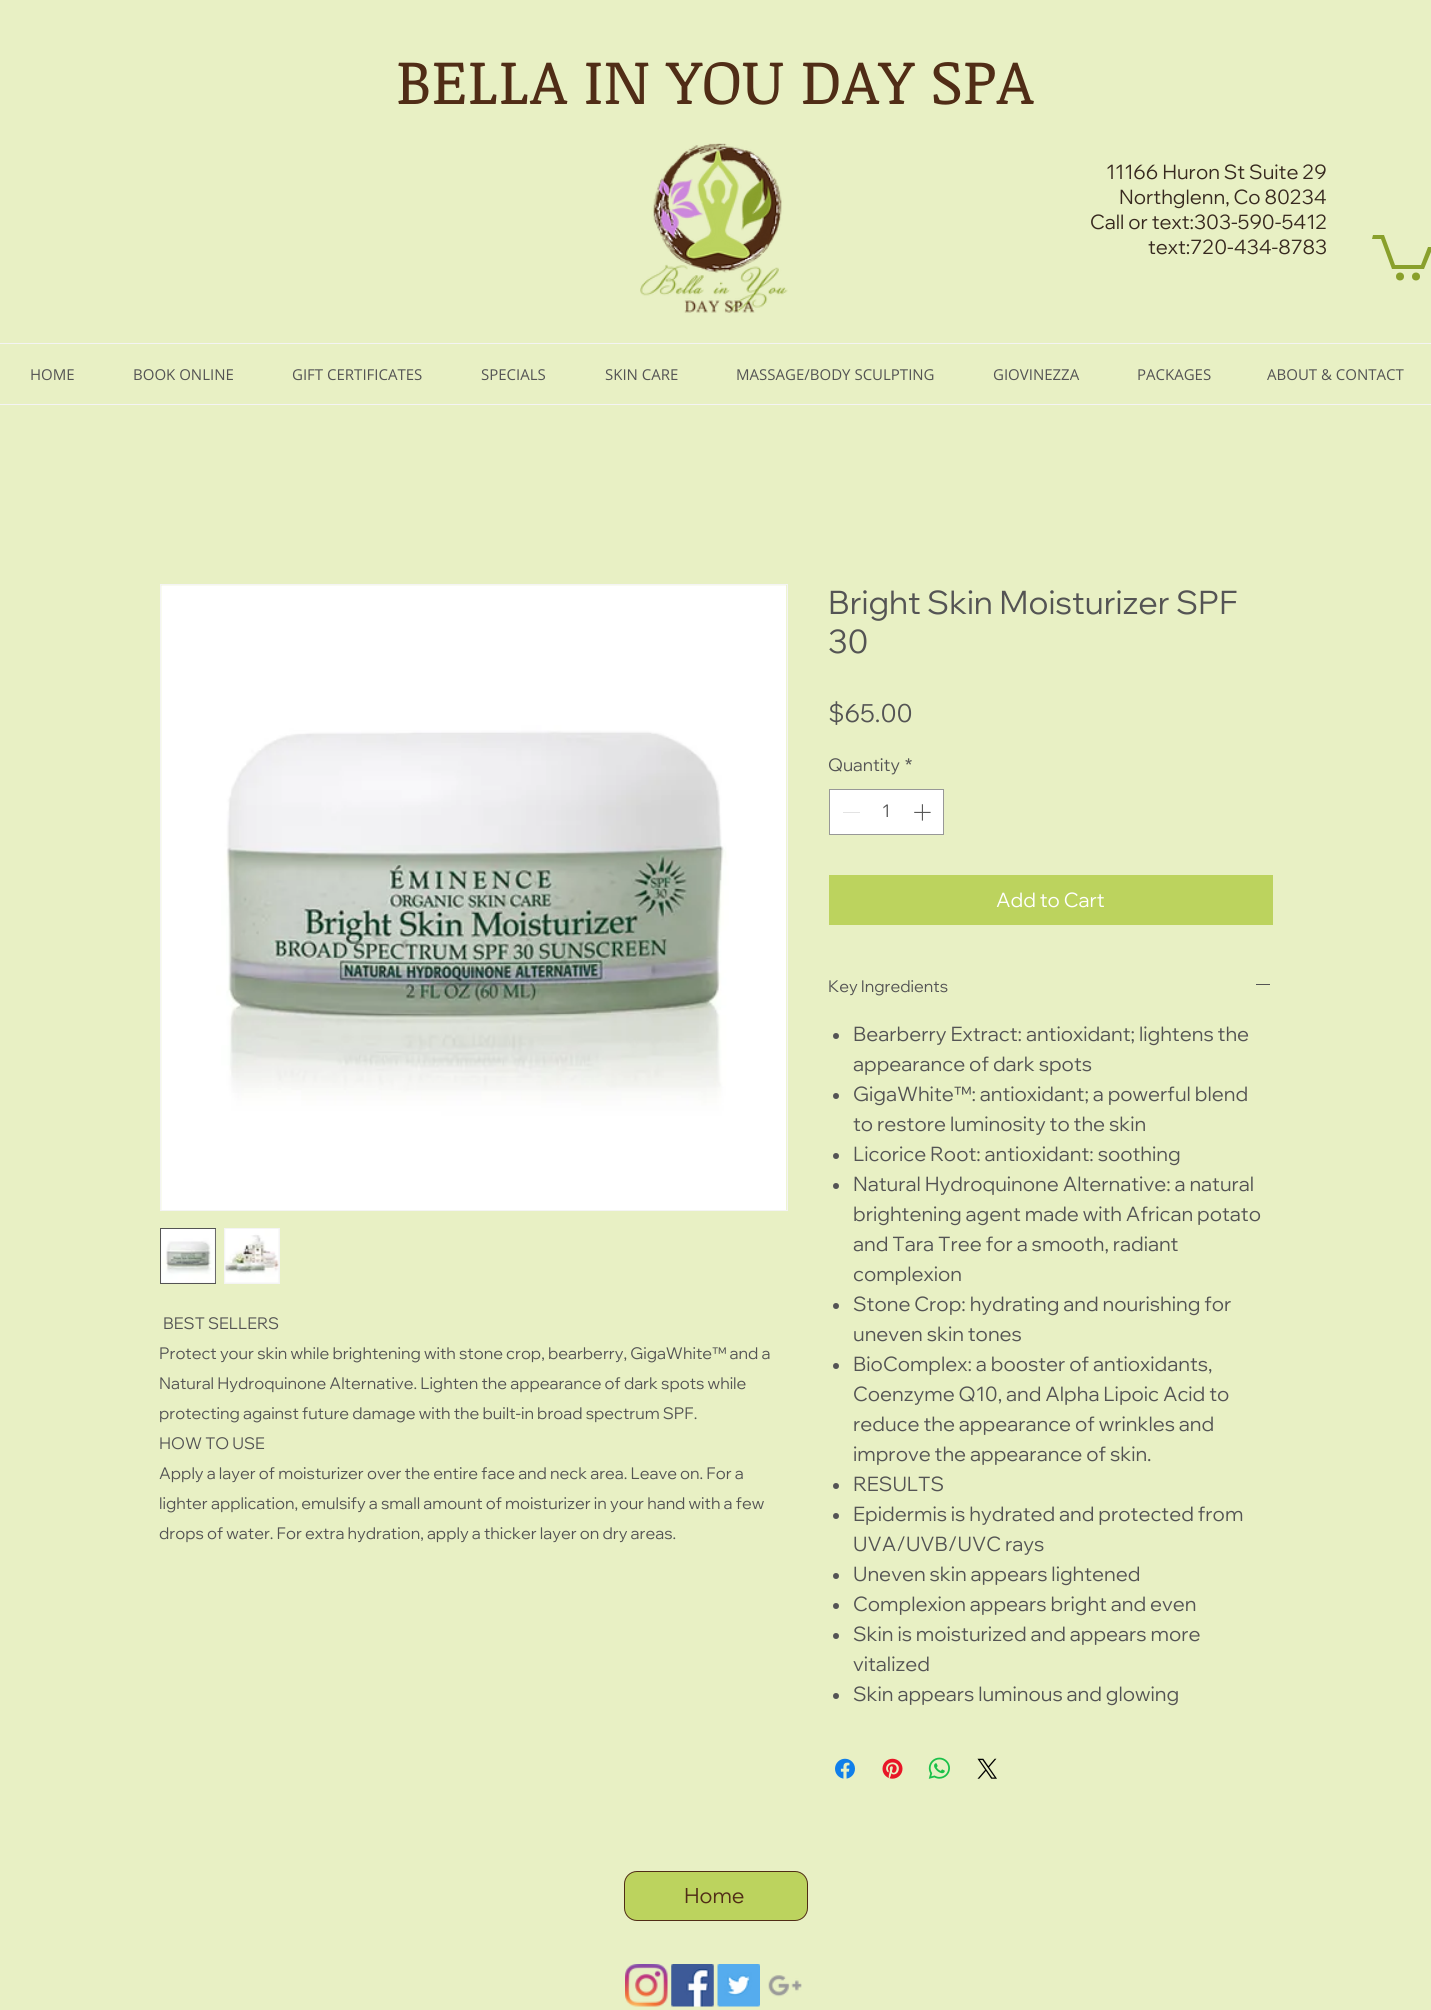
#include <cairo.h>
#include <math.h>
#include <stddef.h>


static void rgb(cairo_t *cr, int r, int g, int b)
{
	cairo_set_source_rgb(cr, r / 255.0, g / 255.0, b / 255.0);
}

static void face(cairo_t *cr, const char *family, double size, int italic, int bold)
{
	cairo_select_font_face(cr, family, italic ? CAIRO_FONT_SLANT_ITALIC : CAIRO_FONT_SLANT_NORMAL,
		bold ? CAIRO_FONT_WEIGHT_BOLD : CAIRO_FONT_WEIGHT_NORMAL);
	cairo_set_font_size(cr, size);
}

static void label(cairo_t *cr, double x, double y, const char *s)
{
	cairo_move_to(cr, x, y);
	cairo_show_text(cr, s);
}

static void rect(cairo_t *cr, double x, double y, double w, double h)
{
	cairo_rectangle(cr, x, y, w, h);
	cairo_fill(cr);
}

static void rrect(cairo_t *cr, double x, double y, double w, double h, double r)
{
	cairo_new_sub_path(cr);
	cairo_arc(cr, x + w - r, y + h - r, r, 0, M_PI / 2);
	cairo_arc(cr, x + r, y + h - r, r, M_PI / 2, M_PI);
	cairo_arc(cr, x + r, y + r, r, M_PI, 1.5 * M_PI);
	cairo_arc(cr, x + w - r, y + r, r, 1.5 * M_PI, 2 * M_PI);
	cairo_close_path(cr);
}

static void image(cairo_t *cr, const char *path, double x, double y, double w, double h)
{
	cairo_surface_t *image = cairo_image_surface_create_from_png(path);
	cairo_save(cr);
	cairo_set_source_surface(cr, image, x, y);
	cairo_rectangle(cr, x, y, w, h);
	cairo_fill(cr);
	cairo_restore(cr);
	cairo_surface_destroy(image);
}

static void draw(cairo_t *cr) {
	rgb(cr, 232, 240, 196);
	cairo_paint(cr);
	face(cr, "Noticia Text", 62.5, 0, 0);
	rgb(cr, 80, 45, 22);
	label(cr, 396, 104, "BELLA IN YOU DAY SPA");
	image(cr, "image0.png", 640, 143, 148, 170);
	face(cr, "Wix Madefor Display", 20, 0, 0);
	rgb(cr, 55, 41, 31);
	label(cr, 1106, 179, "11166 Huron St Suite 29");
	label(cr, 1119, 204, "Northglenn, Co 80234");
	label(cr, 1090, 229, "Call or text:303-590-5412");
	label(cr, 1148, 254, "text:720-434-8783");
	rgb(cr, 137, 160, 44);
	cairo_new_path(cr);
	cairo_move_to(cr, 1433, 247);
	cairo_line_to(cr, 1424, 269);
	cairo_line_to(cr, 1392, 269);
	cairo_line_to(cr, 1381, 239);
	cairo_line_to(cr, 1372, 239);
	cairo_line_to(cr, 1373, 235);
	cairo_line_to(cr, 1384, 235);
	cairo_line_to(cr, 1395, 265);
	cairo_line_to(cr, 1421, 265);
	cairo_line_to(cr, 1428, 247);
	cairo_fill(cr);
	cairo_arc(cr, 1416, 276.5, 4, 0, 2 * M_PI);
	cairo_fill(cr);
	cairo_arc(cr, 1400, 276.5, 4, 0, 2 * M_PI);
	cairo_fill(cr);
	rgb(cr, 244, 244, 244);
	rect(cr, 0, 343, 1431, 1);
	rect(cr, 0, 404, 1431, 1);
	face(cr, "Open Sans", 15, 0, 0);
	rgb(cr, 84, 84, 84);
	label(cr, 30, 380, "HOME");
	label(cr, 133, 380, "BOOK ONLINE");
	label(cr, 292, 380, "GIFT CERTIFICATES");
	label(cr, 481, 380, "SPECIALS");
	label(cr, 605, 380, "SKIN CARE");
	label(cr, 736, 380, "MASSAGE/BODY SCULPTING");
	label(cr, 993, 380, "GIOVINEZZA");
	label(cr, 1137, 380, "PACKAGES");
	label(cr, 1267, 380, "ABOUT & CONTACT");
	cairo_rectangle(cr, 160.5, 584.5, 627, 626);
	rgb(cr, 244, 244, 244);
	cairo_set_line_width(cr, 1);
	cairo_stroke(cr);
	image(cr, "image1.png", 161, 585, 626, 625);
	cairo_rectangle(cr, 160.5, 1228.5, 55, 55);
	cairo_fill_preserve(cr);
	rgb(cr, 84, 84, 84);
	cairo_stroke(cr);
	image(cr, "image2.png", 161, 1229, 55, 54);
	rgb(cr, 244, 244, 244);
	rect(cr, 224, 1228, 56, 56);
	image(cr, "image3.png", 225, 1229, 54, 54);
	face(cr, "Wix Madefor Display", 16.25, 0, 0);
	rgb(cr, 84, 84, 84);
	label(cr, 163, 1329, "BEST SELLERS");
	label(cr, 159, 1359, "Protect your skin while brightening with stone crop, bearberry, GigaWhite™ and a");
	label(cr, 159, 1389, "Natural Hydroquinone Alternative. Lighten the appearance of dark spots while");
	label(cr, 159, 1419, "protecting against future damage with the built-in broad spectrum SPF.");
	label(cr, 159, 1449, "HOW TO USE");
	label(cr, 159, 1479, "Apply a layer of moisturizer over the entire face and neck area. Leave on. For a");
	label(cr, 159, 1509, "lighter application, emulsify a small amount of moisturizer in your hand with a few");
	label(cr, 159, 1539, "drops of water. For extra hydration, apply a thicker layer on dry areas.");
	face(cr, "Wix Madefor Display", 32.5, 0, 0);
	label(cr, 828, 614, "Bright Skin Moisturizer SPF");
	label(cr, 828, 653, "30");
	face(cr, "Wix Madefor Display", 25, 0, 0);
	label(cr, 828, 722, "$65.00");
	face(cr, "Wix Madefor Display", 17.5, 0, 0);
	label(cr, 828, 771, "Quantity");
	label(cr, 905, 771, "*");
	rgb(cr, 255, 255, 255);
	cairo_rectangle(cr, 829.5, 789.5, 114, 45);
	cairo_fill_preserve(cr);
	rgb(cr, 152, 152, 152);
	cairo_stroke(cr);
	rgb(cr, 227, 227, 227);
	rect(cr, 843, 812, 17, 1);
	rgb(cr, 84, 84, 84);
	label(cr, 882, 817, "1");
	image(cr, "image4.png", 914, 804, 17, 17);
	rgb(cr, 188, 211, 94);
	rect(cr, 829, 875, 444, 50);
	face(cr, "Wix Madefor Display", 20, 0, 0);
	rgb(cr, 255, 255, 255);
	label(cr, 996, 907, "Add to Cart");
	face(cr, "Wix Madefor Display", 16.25, 0, 0);
	rgb(cr, 84, 84, 84);
	label(cr, 828, 992, "Key Ingredients");
	rect(cr, 1256, 984, 14, 1);
	cairo_new_path(cr);
	cairo_arc(cr, 836, 1036, 3, 0, 2 * M_PI);
	cairo_fill(cr);
	face(cr, "Wix Madefor Display", 20, 0, 0);
	label(cr, 853, 1041, "Bearberry Extract: antioxidant; lightens the");
	label(cr, 853, 1071, "appearance of dark spots");
	cairo_new_path(cr);
	cairo_arc(cr, 836, 1096, 3, 0, 2 * M_PI);
	cairo_fill(cr);
	label(cr, 853, 1101, "GigaWhite™: antioxidant; a powerful blend");
	label(cr, 853, 1131, "to restore luminosity to the skin");
	cairo_new_path(cr);
	cairo_arc(cr, 836, 1156, 3, 0, 2 * M_PI);
	cairo_fill(cr);
	label(cr, 853, 1161, "Licorice Root: antioxidant: soothing");
	cairo_new_path(cr);
	cairo_arc(cr, 836, 1186, 3, 0, 2 * M_PI);
	cairo_fill(cr);
	label(cr, 853, 1191, "Natural Hydroquinone Alternative: a natural");
	label(cr, 853, 1221, "brightening agent made with African potato");
	label(cr, 853, 1251, "and Tara Tree for a smooth, radiant");
	label(cr, 853, 1281, "complexion");
	cairo_new_path(cr);
	cairo_arc(cr, 836, 1306, 3, 0, 2 * M_PI);
	cairo_fill(cr);
	label(cr, 853, 1311, "Stone Crop: hydrating and nourishing for");
	label(cr, 853, 1341, "uneven skin tones");
	cairo_new_path(cr);
	cairo_arc(cr, 836, 1366, 3, 0, 2 * M_PI);
	cairo_fill(cr);
	label(cr, 853, 1371, "BioComplex: a booster of antioxidants,");
	label(cr, 853, 1401, "Coenzyme Q10, and Alpha Lipoic Acid to");
	label(cr, 853, 1431, "reduce the appearance of wrinkles and");
	label(cr, 853, 1461, "improve the appearance of skin.");
	cairo_new_path(cr);
	cairo_arc(cr, 836, 1486, 3, 0, 2 * M_PI);
	cairo_fill(cr);
	label(cr, 853, 1491, "RESULTS");
	cairo_new_path(cr);
	cairo_arc(cr, 836, 1516, 3, 0, 2 * M_PI);
	cairo_fill(cr);
	label(cr, 853, 1521, "Epidermis is hydrated and protected from");
	label(cr, 853, 1551, "UVA/UVB/UVC rays");
	cairo_new_path(cr);
	cairo_arc(cr, 836, 1576, 3, 0, 2 * M_PI);
	cairo_fill(cr);
	label(cr, 853, 1581, "Uneven skin appears lightened");
	cairo_new_path(cr);
	cairo_arc(cr, 836, 1606, 3, 0, 2 * M_PI);
	cairo_fill(cr);
	label(cr, 853, 1611, "Complexion appears bright and even");
	cairo_new_path(cr);
	cairo_arc(cr, 836, 1636, 3, 0, 2 * M_PI);
	cairo_fill(cr);
	label(cr, 853, 1641, "Skin is moisturized and appears more");
	label(cr, 853, 1671, "vitalized");
	cairo_new_path(cr);
	cairo_arc(cr, 836, 1696, 3, 0, 2 * M_PI);
	cairo_fill(cr);
	label(cr, 853, 1701, "Skin appears luminous and glowing");
	image(cr, "image5.png", 835, 1758, 20, 21);
	image(cr, "image6.png", 882, 1758, 21, 21);
	image(cr, "image7.png", 928, 1757, 22, 22);
	image(cr, "image8.png", 977, 1758, 20, 21);
	rgb(cr, 188, 211, 94);
	rrect(cr, 624.5, 1871.5, 183, 49, 12.5);
	cairo_fill_preserve(cr);
	rgb(cr, 80, 45, 22);
	cairo_stroke(cr);
	face(cr, "Wix Madefor Display", 21, 0, 0);
	label(cr, 684, 1903, "Home");
	image(cr, "image9.png", 625, 1964, 43, 43);
	image(cr, "image10.png", 671, 1964, 43, 43);
	image(cr, "image11.png", 717, 1964, 43, 43);
	image(cr, "image12.png", 768, 1975, 34, 22);
}

int main(void) {
	cairo_surface_t *surface = cairo_image_surface_create(CAIRO_FORMAT_RGB24, 1431, 2010);
	cairo_t *cr = cairo_create(surface);
	cairo_font_options_t *options = cairo_font_options_create();
	cairo_font_options_set_hint_metrics(options, CAIRO_HINT_METRICS_OFF);
	cairo_font_options_set_hint_style(options, CAIRO_HINT_STYLE_NONE);
	cairo_set_font_options(cr, options);
	cairo_set_miter_limit(cr, 4);
	draw(cr);
	cairo_surface_write_to_png(surface, "render.png");
	cairo_font_options_destroy(options);
	cairo_destroy(cr);
	cairo_surface_destroy(surface);
	return 0;
}
